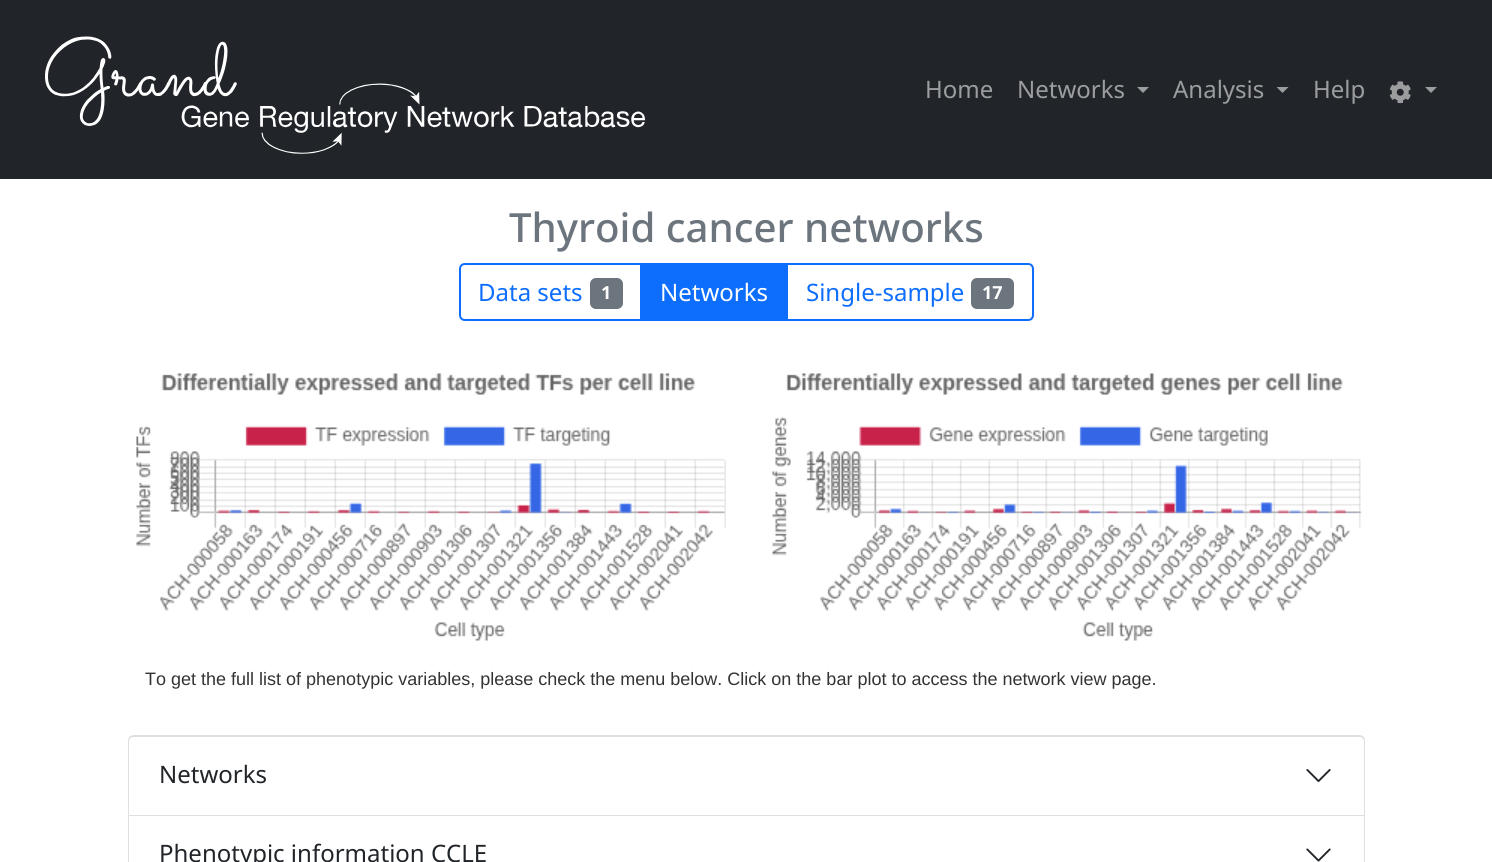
#include <cairo.h>
#include <math.h>
#include <stddef.h>


static void rgb(cairo_t *cr, int r, int g, int b)
{
	cairo_set_source_rgb(cr, r / 255.0, g / 255.0, b / 255.0);
}

static void face(cairo_t *cr, const char *family, double size, int italic, int bold)
{
	cairo_select_font_face(cr, family, italic ? CAIRO_FONT_SLANT_ITALIC : CAIRO_FONT_SLANT_NORMAL,
		bold ? CAIRO_FONT_WEIGHT_BOLD : CAIRO_FONT_WEIGHT_NORMAL);
	cairo_set_font_size(cr, size);
}

static void label(cairo_t *cr, double x, double y, const char *s)
{
	cairo_move_to(cr, x, y);
	cairo_show_text(cr, s);
}

static void rect(cairo_t *cr, double x, double y, double w, double h)
{
	cairo_rectangle(cr, x, y, w, h);
	cairo_fill(cr);
}

static void rrect(cairo_t *cr, double x, double y, double w, double h, double r)
{
	cairo_new_sub_path(cr);
	cairo_arc(cr, x + w - r, y + h - r, r, 0, M_PI / 2);
	cairo_arc(cr, x + r, y + h - r, r, M_PI / 2, M_PI);
	cairo_arc(cr, x + r, y + r, r, M_PI, 1.5 * M_PI);
	cairo_arc(cr, x + w - r, y + r, r, 1.5 * M_PI, 2 * M_PI);
	cairo_close_path(cr);
}

static void image(cairo_t *cr, const char *path, double x, double y, double w, double h)
{
	cairo_surface_t *image = cairo_image_surface_create_from_png(path);
	cairo_save(cr);
	cairo_set_source_surface(cr, image, x, y);
	cairo_rectangle(cr, x, y, w, h);
	cairo_fill(cr);
	cairo_restore(cr);
	cairo_surface_destroy(image);
}

static void draw(cairo_t *cr) {
	rgb(cr, 255, 255, 255);
	cairo_paint(cr);
	rgb(cr, 33, 37, 41);
	rect(cr, 0, 0, 1492, 179);
	image(cr, "image0.png", 45, 36, 600, 118);
	face(cr, "Noto Sans", 24, 0, 0);
	rgb(cr, 155, 157, 159);
	label(cr, 925, 98, "Home");
	label(cr, 1017, 98, "Networks");
	cairo_new_path(cr);
	cairo_move_to(cr, 1137, 87);
	cairo_line_to(cr, 1149, 87);
	cairo_line_to(cr, 1143, 93);
	cairo_close_path(cr);
	cairo_fill(cr);
	label(cr, 1173, 98, "Analysis");
	cairo_new_path(cr);
	cairo_move_to(cr, 1276.5, 87);
	cairo_line_to(cr, 1288.5, 87);
	cairo_line_to(cr, 1282.5, 93);
	cairo_close_path(cr);
	cairo_fill(cr);
	label(cr, 1313, 98, "Help");
	image(cr, "image1.png", 1389, 81, 22, 23);
	cairo_new_path(cr);
	cairo_move_to(cr, 1425, 87);
	cairo_line_to(cr, 1437, 87);
	cairo_line_to(cr, 1431, 93);
	cairo_close_path(cr);
	cairo_fill(cr);
	face(cr, "Noto Sans Medium", 40.2, 0, 0);
	rgb(cr, 108, 117, 125);
	label(cr, 509, 242, "Thyroid cancer networks");
	cairo_new_path(cr);
	cairo_move_to(cr, 465, 264);
	cairo_line_to(cr, 641, 264);
	cairo_line_to(cr, 641, 320);
	cairo_line_to(cr, 465, 320);
	cairo_curve_to(cr, 462, 320, 460, 318, 460, 315);
	cairo_line_to(cr, 460, 269);
	cairo_curve_to(cr, 460, 266, 462, 264, 465, 264);
	cairo_close_path(cr);
	rgb(cr, 13, 110, 253);
	cairo_stroke(cr);
	face(cr, "Noto Sans", 24, 0, 0);
	label(cr, 478, 301, "Data sets");
	rgb(cr, 108, 117, 125);
	rrect(cr, 590, 278, 33, 31, 6);
	cairo_fill(cr);
	face(cr, "Noto Sans", 18, 0, 1);
	rgb(cr, 255, 255, 255);
	label(cr, 601, 299, "1");
	rgb(cr, 13, 110, 253);
	rect(cr, 642, 263, 144, 58);
	face(cr, "Noto Sans", 24, 0, 0);
	rgb(cr, 255, 255, 255);
	label(cr, 660, 301, "Networks");
	cairo_new_path(cr);
	cairo_move_to(cr, 787, 264);
	cairo_line_to(cr, 1028, 264);
	cairo_curve_to(cr, 1031, 264, 1033, 266, 1033, 269);
	cairo_line_to(cr, 1033, 315);
	cairo_curve_to(cr, 1033, 318, 1031, 320, 1028, 320);
	cairo_line_to(cr, 787, 320);
	cairo_close_path(cr);
	rgb(cr, 13, 110, 253);
	cairo_stroke(cr);
	label(cr, 806, 301, "Single-sample");
	rgb(cr, 108, 117, 125);
	rrect(cr, 971, 278, 43, 31, 6);
	cairo_fill(cr);
	face(cr, "Noto Sans", 18, 0, 1);
	rgb(cr, 255, 255, 255);
	label(cr, 982, 299, "17");
	image(cr, "image2.png", 136, 373, 590, 268);
	image(cr, "image3.png", 772, 373, 590, 268);
	face(cr, "Liberation Sans", 18, 0, 0);
	rgb(cr, 51, 51, 51);
	label(cr, 145, 685, "To get the full list of phenotypic variables, please check the menu below. Click on the bar plot to access the network view page.");
	cairo_new_path(cr);
	cairo_move_to(cr, 134, 736);
	cairo_line_to(cr, 1359, 736);
	cairo_curve_to(cr, 1362, 736, 1364, 738, 1364, 741);
	cairo_line_to(cr, 1364, 815);
	cairo_line_to(cr, 129, 815);
	cairo_line_to(cr, 129, 741);
	cairo_curve_to(cr, 129, 738, 131, 736, 134, 736);
	cairo_close_path(cr);
	rgb(cr, 223, 223, 223);
	cairo_stroke(cr);
	rgb(cr, 255, 255, 255);
	cairo_new_path(cr);
	cairo_move_to(cr, 134, 737);
	cairo_line_to(cr, 1359, 737);
	cairo_curve_to(cr, 1362, 737, 1364, 739, 1364, 742);
	cairo_line_to(cr, 1364, 815);
	cairo_line_to(cr, 129, 815);
	cairo_line_to(cr, 129, 742);
	cairo_curve_to(cr, 129, 739, 131, 737, 134, 737);
	cairo_close_path(cr);
	cairo_fill(cr);
	face(cr, "Noto Sans", 24, 0, 0);
	rgb(cr, 33, 37, 41);
	label(cr, 159, 783, "Networks");
	image(cr, "image4.png", 1306, 769, 25, 13);
	rgb(cr, 223, 223, 223);
	cairo_set_fill_rule(cr, CAIRO_FILL_RULE_EVEN_ODD);
	cairo_new_path(cr);
	cairo_move_to(cr, 128, 816);
	cairo_line_to(cr, 1365, 816);
	cairo_line_to(cr, 1365, 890);
	cairo_curve_to(cr, 1365, 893, 1362, 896, 1359, 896);
	cairo_line_to(cr, 134, 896);
	cairo_curve_to(cr, 130, 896, 128, 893, 128, 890);
	cairo_close_path(cr);
	cairo_move_to(cr, 129, 816);
	cairo_line_to(cr, 1364, 816);
	cairo_line_to(cr, 1364, 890);
	cairo_curve_to(cr, 1364, 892, 1361, 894, 1359, 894);
	cairo_line_to(cr, 134, 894);
	cairo_curve_to(cr, 131, 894, 129, 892, 129, 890);
	cairo_close_path(cr);
	cairo_fill(cr);
	rgb(cr, 33, 37, 41);
	label(cr, 159, 862, "Phenotypic information CCLE");
	image(cr, "image5.png", 1306, 848, 25, 14);
}

int main(void) {
	cairo_surface_t *surface = cairo_image_surface_create(CAIRO_FORMAT_RGB24, 1492, 862);
	cairo_t *cr = cairo_create(surface);
	cairo_font_options_t *options = cairo_font_options_create();
	cairo_font_options_set_hint_metrics(options, CAIRO_HINT_METRICS_OFF);
	cairo_font_options_set_hint_style(options, CAIRO_HINT_STYLE_NONE);
	cairo_set_font_options(cr, options);
	cairo_set_miter_limit(cr, 4);
	draw(cr);
	cairo_surface_write_to_png(surface, "render.png");
	cairo_font_options_destroy(options);
	cairo_destroy(cr);
	cairo_surface_destroy(surface);
	return 0;
}
